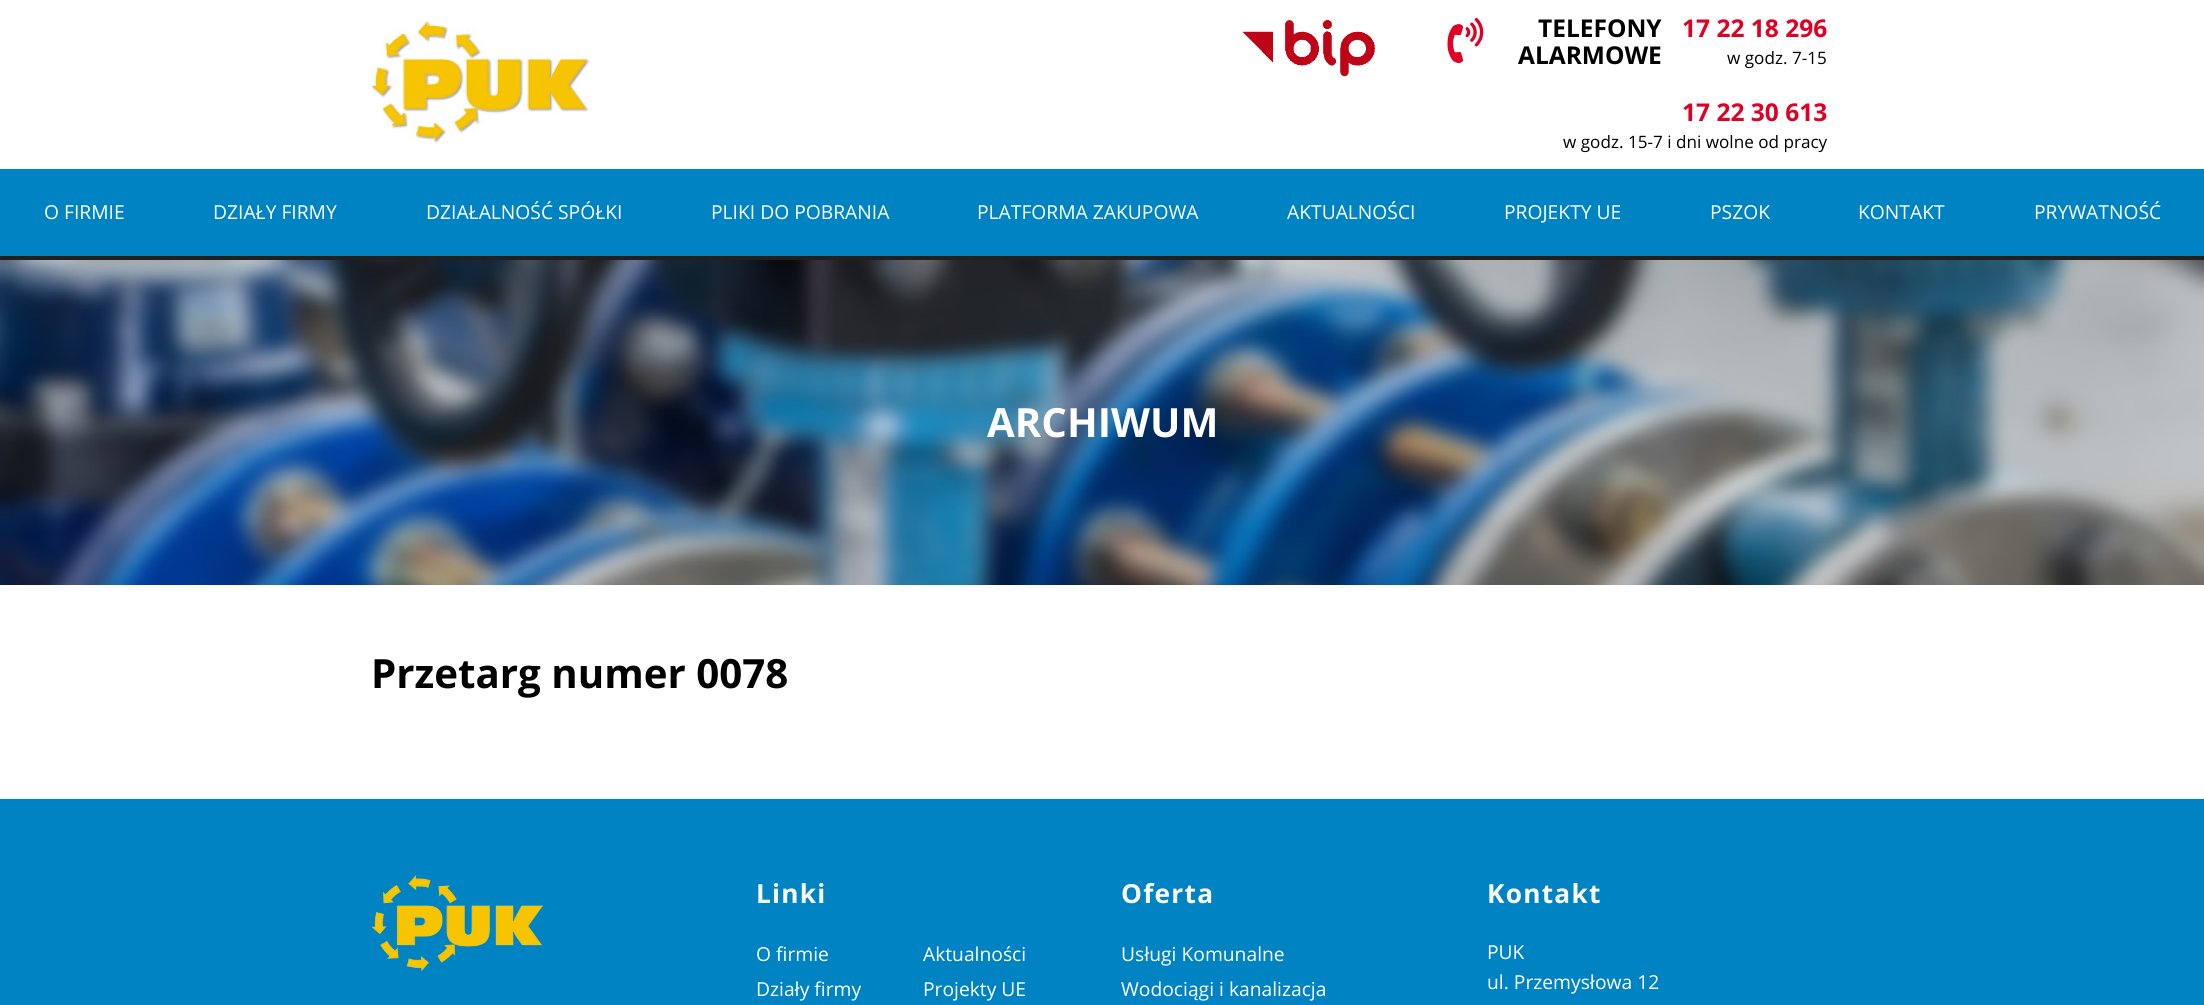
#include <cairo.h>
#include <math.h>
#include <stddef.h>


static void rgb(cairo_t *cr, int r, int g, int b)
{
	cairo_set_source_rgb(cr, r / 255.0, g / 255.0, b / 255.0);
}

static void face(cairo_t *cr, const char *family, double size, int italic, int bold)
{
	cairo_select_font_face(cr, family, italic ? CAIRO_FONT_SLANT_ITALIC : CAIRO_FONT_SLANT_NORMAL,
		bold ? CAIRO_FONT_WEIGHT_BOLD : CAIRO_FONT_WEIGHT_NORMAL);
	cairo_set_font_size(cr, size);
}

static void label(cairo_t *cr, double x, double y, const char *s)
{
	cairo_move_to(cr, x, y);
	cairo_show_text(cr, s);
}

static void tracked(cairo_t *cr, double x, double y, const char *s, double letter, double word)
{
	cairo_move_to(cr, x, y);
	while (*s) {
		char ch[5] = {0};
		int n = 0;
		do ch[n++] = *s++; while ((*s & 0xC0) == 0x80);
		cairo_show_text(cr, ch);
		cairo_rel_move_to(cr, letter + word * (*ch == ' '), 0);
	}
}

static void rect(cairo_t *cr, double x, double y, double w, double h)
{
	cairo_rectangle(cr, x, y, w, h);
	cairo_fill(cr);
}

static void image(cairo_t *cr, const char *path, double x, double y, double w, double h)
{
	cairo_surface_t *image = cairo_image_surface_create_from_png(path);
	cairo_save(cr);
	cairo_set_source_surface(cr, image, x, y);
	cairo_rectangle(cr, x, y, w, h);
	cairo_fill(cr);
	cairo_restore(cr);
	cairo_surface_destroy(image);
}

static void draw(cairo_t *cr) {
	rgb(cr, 255, 255, 255);
	cairo_paint(cr);
	image(cr, "image0.png", 371, 19, 219, 125);
	image(cr, "image1.png", 1242, 20, 133, 57);
	image(cr, "image2.png", 1447, 18, 37, 46);
	face(cr, "Open Sans", 24.5, 0, 1);
	rgb(cr, 0, 0, 0);
	label(cr, 1538, 37, "TELEFONY");
	label(cr, 1518, 64, "ALARMOWE");
	rgb(cr, 223, 0, 36);
	label(cr, 1682, 37, "17 22 18 296");
	face(cr, "Open Sans", 17.1, 0, 0);
	rgb(cr, 0, 0, 0);
	label(cr, 1727, 64, "w godz. 7-15");
	face(cr, "Open Sans", 24.5, 0, 1);
	rgb(cr, 223, 0, 36);
	label(cr, 1682, 121, "17 22 30 613");
	face(cr, "Open Sans", 17.1, 0, 0);
	rgb(cr, 0, 0, 0);
	label(cr, 1563, 148, "w godz. 15-7 i dni wolne od pracy");
	rgb(cr, 0, 131, 194);
	rect(cr, 0, 169, 2204, 87);
	rgb(cr, 34, 31, 31);
	rect(cr, 0, 256, 2204, 4);
	face(cr, "Open Sans", 19.25, 0, 0);
	rgb(cr, 255, 255, 255);
	label(cr, 44, 219, "O FIRMIE");
	label(cr, 213, 219, "DZIAŁY FIRMY");
	label(cr, 426, 219, "DZIAŁALNOŚĆ SPÓŁKI");
	label(cr, 711, 219, "PLIKI DO POBRANIA");
	label(cr, 977, 219, "PLATFORMA ZAKUPOWA");
	label(cr, 1287, 219, "AKTUALNOŚCI");
	label(cr, 1504, 219, "PROJEKTY UE");
	label(cr, 1710, 219, "PSZOK");
	label(cr, 1858, 219, "KONTAKT");
	label(cr, 2034, 219, "PRYWATNOŚĆ");
	image(cr, "image3.png", 0, 260, 2204, 325);
	face(cr, "Open Sans", 40.25, 0, 1);
	label(cr, 987, 437, "ARCHIWUM");
	rgb(cr, 0, 0, 0);
	label(cr, 371, 688, "Przetarg numer 0078");
	rgb(cr, 0, 131, 194);
	rect(cr, 0, 799, 2204, 206);
	image(cr, "image4.png", 371, 875, 172, 97);
	face(cr, "Open Sans", 26.25, 0, 1);
	rgb(cr, 255, 255, 255);
	tracked(cr, 756, 903, "Linki", 1.25, 0);
	face(cr, "Open Sans", 19.25, 0, 0);
	label(cr, 756, 961, "O firmie");
	label(cr, 923, 961, "Aktualności");
	label(cr, 756, 996, "Działy firmy");
	label(cr, 923, 996, "Projekty UE");
	face(cr, "Open Sans", 26.25, 0, 1);
	tracked(cr, 1121, 903, "Oferta", 1.25, 0);
	face(cr, "Open Sans", 19.25, 0, 0);
	label(cr, 1121, 961, "Usługi Komunalne");
	label(cr, 1121, 996, "Wodociągi i kanalizacja");
	face(cr, "Open Sans", 26.25, 0, 1);
	tracked(cr, 1487, 903, "Kontakt", 1.25, 0);
	face(cr, "Open Sans", 19.25, 0, 0);
	label(cr, 1487, 959, "PUK");
	label(cr, 1487, 989, "ul. Przemysłowa 12");
}

int main(void) {
	cairo_surface_t *surface = cairo_image_surface_create(CAIRO_FORMAT_RGB24, 2204, 1005);
	cairo_t *cr = cairo_create(surface);
	cairo_font_options_t *options = cairo_font_options_create();
	cairo_font_options_set_hint_metrics(options, CAIRO_HINT_METRICS_OFF);
	cairo_font_options_set_hint_style(options, CAIRO_HINT_STYLE_NONE);
	cairo_set_font_options(cr, options);
	cairo_set_miter_limit(cr, 4);
	draw(cr);
	cairo_surface_write_to_png(surface, "render.png");
	cairo_font_options_destroy(options);
	cairo_destroy(cr);
	cairo_surface_destroy(surface);
	return 0;
}
